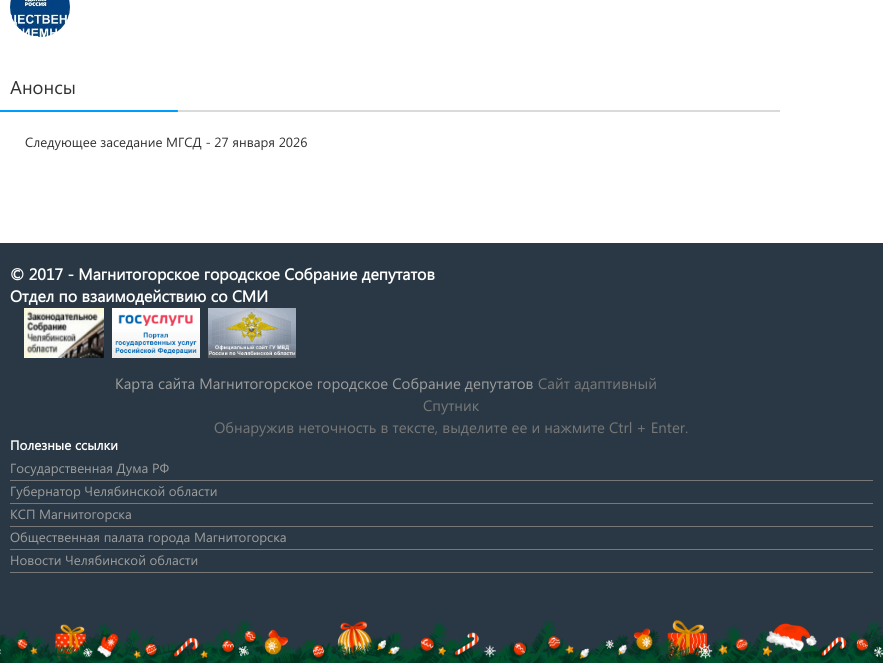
#include <cairo.h>
#include <math.h>
#include <stddef.h>


static void rgb(cairo_t *cr, int r, int g, int b)
{
	cairo_set_source_rgb(cr, r / 255.0, g / 255.0, b / 255.0);
}

static void face(cairo_t *cr, const char *family, double size, int italic, int bold)
{
	cairo_select_font_face(cr, family, italic ? CAIRO_FONT_SLANT_ITALIC : CAIRO_FONT_SLANT_NORMAL,
		bold ? CAIRO_FONT_WEIGHT_BOLD : CAIRO_FONT_WEIGHT_NORMAL);
	cairo_set_font_size(cr, size);
}

static void label(cairo_t *cr, double x, double y, const char *s)
{
	cairo_move_to(cr, x, y);
	cairo_show_text(cr, s);
}

static void rect(cairo_t *cr, double x, double y, double w, double h)
{
	cairo_rectangle(cr, x, y, w, h);
	cairo_fill(cr);
}

static void image(cairo_t *cr, const char *path, double x, double y, double w, double h)
{
	cairo_surface_t *image = cairo_image_surface_create_from_png(path);
	cairo_save(cr);
	cairo_set_source_surface(cr, image, x, y);
	cairo_rectangle(cr, x, y, w, h);
	cairo_fill(cr);
	cairo_restore(cr);
	cairo_surface_destroy(image);
}

static void draw(cairo_t *cr) {
	rgb(cr, 255, 255, 255);
	cairo_paint(cr);
	image(cr, "image0.png", 10, 0, 60, 37);
	image(cr, "image1.png", 0, 110, 780, 2);
	face(cr, "Segoe UI", 18.5, 0, 0);
	rgb(cr, 51, 51, 51);
	label(cr, 10, 94, "Анонсы");
	face(cr, "Segoe UI", 13.3, 0, 0);
	label(cr, 25, 147, "Следующее заседание МГСД - 27 января 2026");
	rgb(cr, 41, 56, 68);
	rect(cr, 0, 243, 883, 420);
	face(cr, "Segoe UI", 16, 0, 1);
	rgb(cr, 255, 255, 255);
	label(cr, 10, 280, "© 2017 - Магнитогорское городское Собрание депутатов");
	label(cr, 10, 302, "Отдел по взаимодействию со СМИ");
	image(cr, "image2.png", 24, 308, 80, 50);
	image(cr, "image3.png", 112, 308, 88, 50);
	image(cr, "image4.png", 208, 308, 88, 50);
	face(cr, "Segoe UI", 15, 0, 0);
	rgb(cr, 157, 157, 157);
	label(cr, 115, 389, "Карта сайта Магнитогорское городское Cобрание депутатов");
	rgb(cr, 119, 119, 119);
	label(cr, 538, 389, "Сайт адаптивный");
	label(cr, 423, 411, "Спутник");
	label(cr, 214, 433, "Обнаружив неточность в тексте, выделите ее и нажмите Ctrl + Enter.");
	face(cr, "Segoe UI", 13.3, 0, 1);
	rgb(cr, 255, 255, 255);
	label(cr, 10, 450, "Полезные ссылки");
	rgb(cr, 119, 119, 119);
	rect(cr, 10, 480, 863, 1);
	face(cr, "Segoe UI", 13.3, 0, 0);
	rgb(cr, 157, 157, 157);
	label(cr, 10, 473, "Государственная Дума РФ");
	rgb(cr, 119, 119, 119);
	rect(cr, 10, 503, 863, 1);
	rgb(cr, 157, 157, 157);
	label(cr, 10, 496, "Губернатор Челябинской области");
	rgb(cr, 119, 119, 119);
	rect(cr, 10, 526, 863, 1);
	rgb(cr, 157, 157, 157);
	label(cr, 10, 519, "КСП Магнитогорска");
	rgb(cr, 119, 119, 119);
	rect(cr, 10, 549, 863, 1);
	rgb(cr, 157, 157, 157);
	label(cr, 10, 542, "Общественная палата города Магнитогорска");
	rgb(cr, 119, 119, 119);
	rect(cr, 10, 572, 863, 1);
	rgb(cr, 157, 157, 157);
	label(cr, 10, 565, "Новости Челябинской области");
	image(cr, "image5.png", 0, 619, 883, 44);
}

int main(void) {
	cairo_surface_t *surface = cairo_image_surface_create(CAIRO_FORMAT_RGB24, 883, 663);
	cairo_t *cr = cairo_create(surface);
	cairo_font_options_t *options = cairo_font_options_create();
	cairo_font_options_set_hint_metrics(options, CAIRO_HINT_METRICS_OFF);
	cairo_font_options_set_hint_style(options, CAIRO_HINT_STYLE_NONE);
	cairo_set_font_options(cr, options);
	cairo_set_miter_limit(cr, 4);
	draw(cr);
	cairo_surface_write_to_png(surface, "render.png");
	cairo_font_options_destroy(options);
	cairo_destroy(cr);
	cairo_surface_destroy(surface);
	return 0;
}
